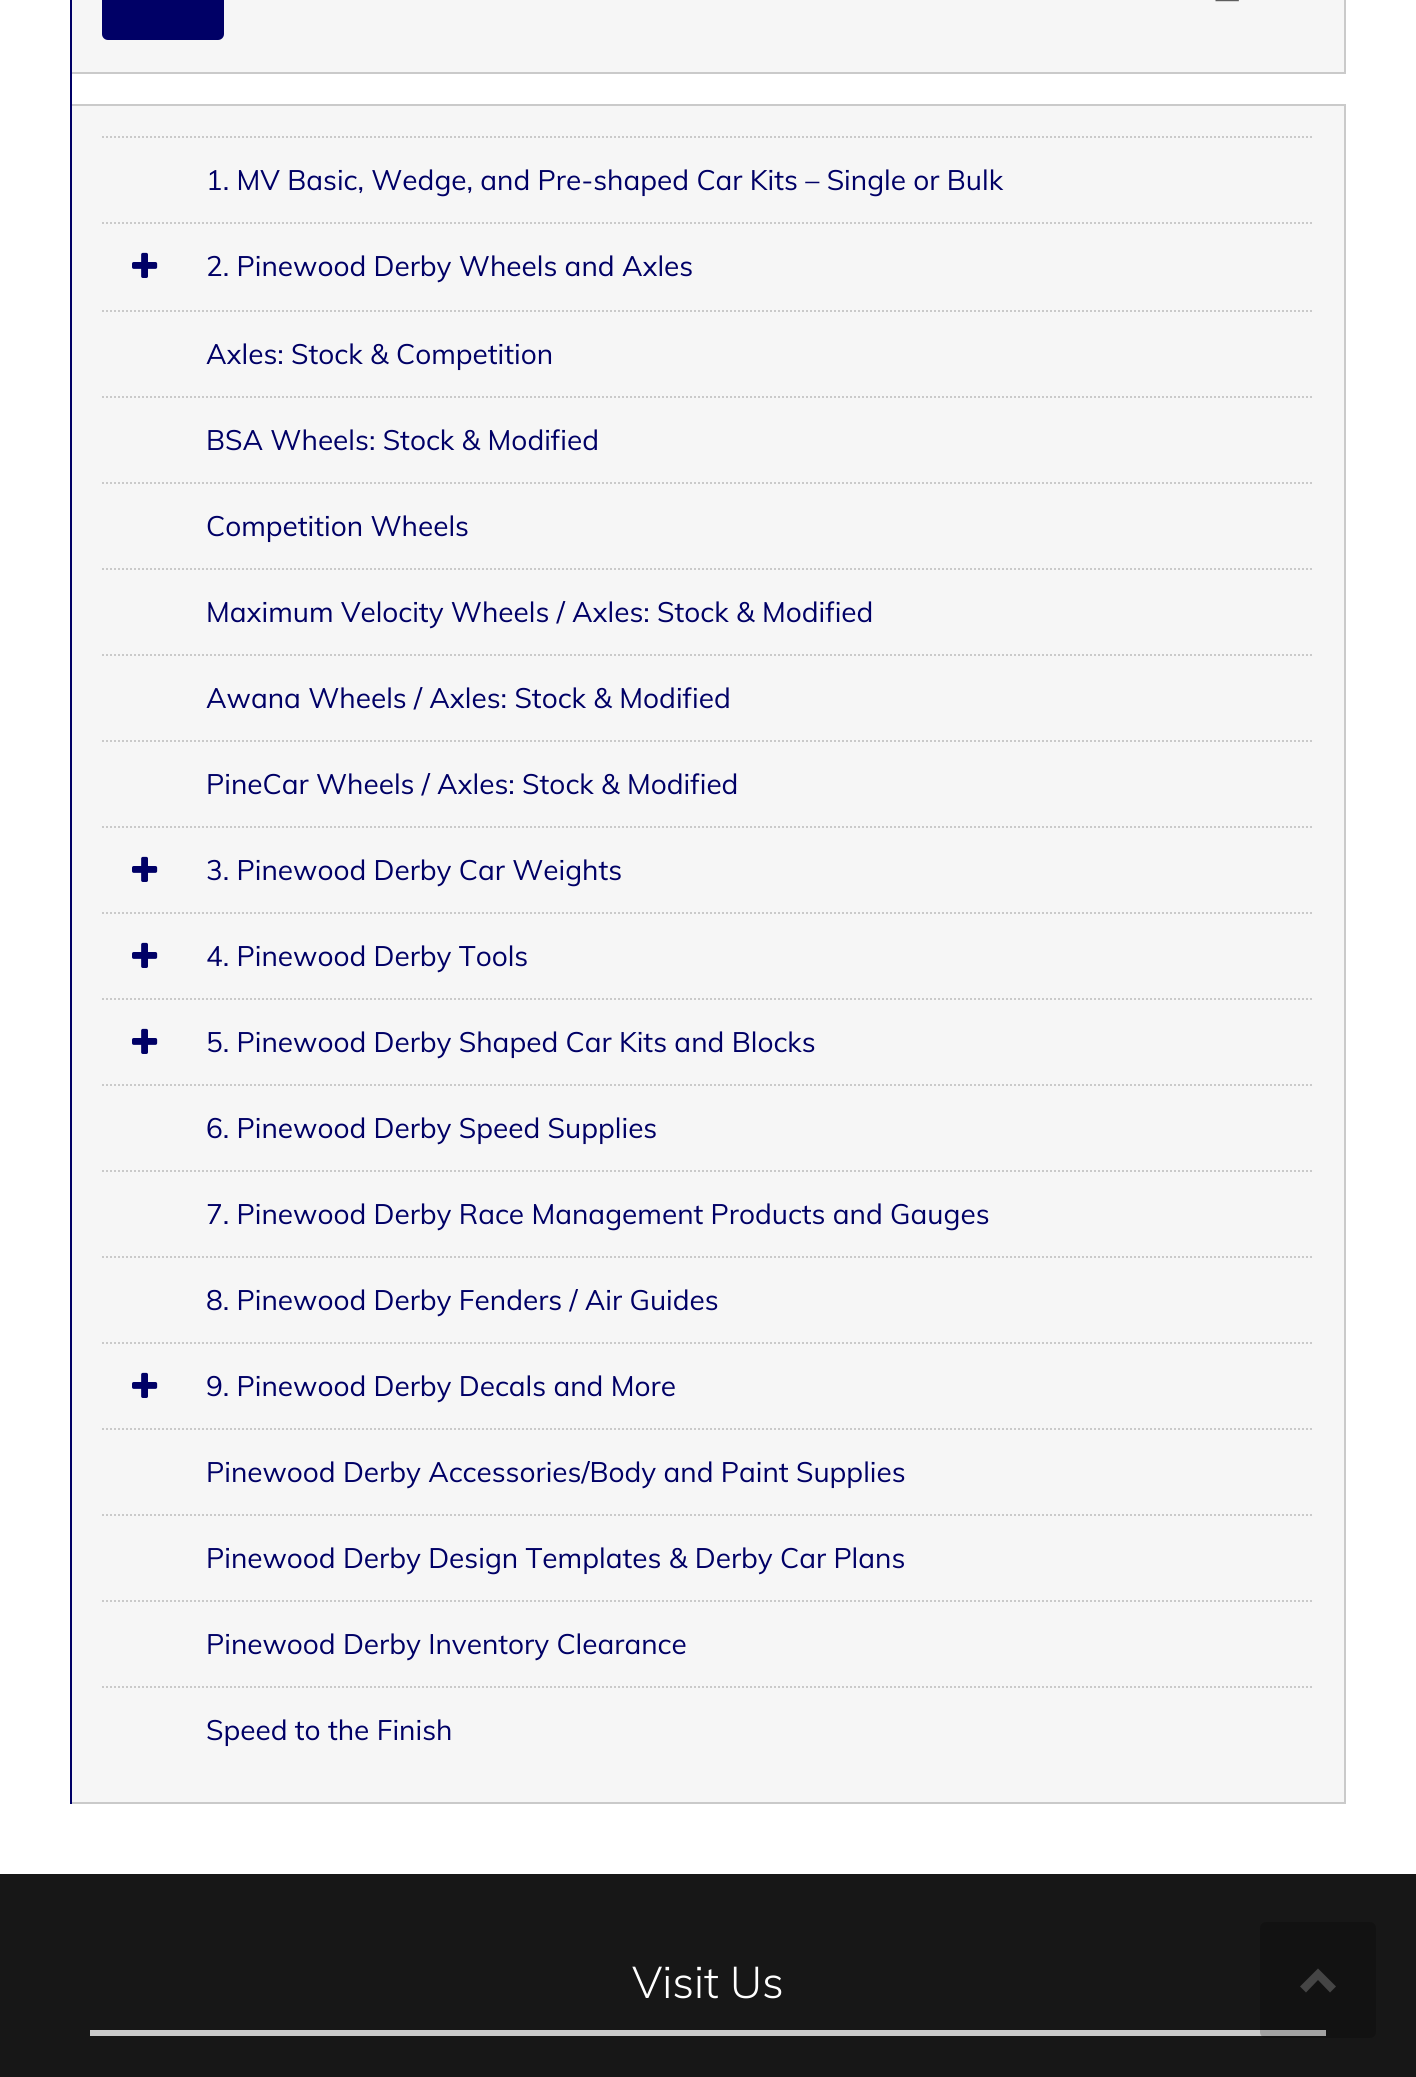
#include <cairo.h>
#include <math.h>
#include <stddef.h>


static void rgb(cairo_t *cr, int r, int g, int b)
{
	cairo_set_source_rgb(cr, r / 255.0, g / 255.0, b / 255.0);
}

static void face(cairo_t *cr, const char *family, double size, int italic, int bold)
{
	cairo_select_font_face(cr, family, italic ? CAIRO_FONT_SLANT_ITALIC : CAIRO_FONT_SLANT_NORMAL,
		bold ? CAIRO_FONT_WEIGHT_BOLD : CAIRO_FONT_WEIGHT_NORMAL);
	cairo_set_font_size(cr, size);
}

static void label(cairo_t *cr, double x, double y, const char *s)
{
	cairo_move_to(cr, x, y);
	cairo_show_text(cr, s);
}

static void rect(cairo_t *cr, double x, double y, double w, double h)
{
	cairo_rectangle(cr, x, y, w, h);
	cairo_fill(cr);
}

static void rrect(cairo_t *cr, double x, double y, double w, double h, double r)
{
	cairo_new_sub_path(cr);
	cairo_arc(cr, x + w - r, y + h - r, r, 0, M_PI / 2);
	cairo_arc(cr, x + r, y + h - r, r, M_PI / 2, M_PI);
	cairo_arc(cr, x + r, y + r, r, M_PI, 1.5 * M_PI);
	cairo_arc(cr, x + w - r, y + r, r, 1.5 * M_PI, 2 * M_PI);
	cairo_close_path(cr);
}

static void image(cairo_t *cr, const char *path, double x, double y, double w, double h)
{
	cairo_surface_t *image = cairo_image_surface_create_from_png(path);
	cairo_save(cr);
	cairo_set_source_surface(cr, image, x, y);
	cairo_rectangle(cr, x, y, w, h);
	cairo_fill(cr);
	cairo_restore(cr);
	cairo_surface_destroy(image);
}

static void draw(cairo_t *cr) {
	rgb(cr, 23, 23, 23);
	cairo_paint(cr);
	rgb(cr, 255, 255, 255);
	rect(cr, 0, 0, 1416, 1874);
	rgb(cr, 0, 0, 102);
	rect(cr, 70, 0, 2, 1804);
	rgb(cr, 246, 246, 246);
	rect(cr, 72, 0, 1272, 72);
	rgb(cr, 202, 202, 202);
	rect(cr, 1344, 0, 2, 74);
	rect(cr, 72, 72, 1274, 2);
	rgb(cr, 0, 0, 102);
	rrect(cr, 102, -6, 122, 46, 6);
	cairo_fill(cr);
	face(cr, "Lato Light", 36, 0, 0);
	rgb(cr, 94, 94, 94);
	label(cr, 1213, 11, "—");
	rgb(cr, 246, 246, 246);
	rect(cr, 72, 106, 1272, 1696);
	rgb(cr, 202, 202, 202);
	rect(cr, 72, 104, 1274, 2);
	rect(cr, 1344, 104, 2, 1700);
	rect(cr, 72, 1802, 1274, 2);
	cairo_new_path(cr);
	cairo_move_to(cr, 102, 137);
	cairo_line_to(cr, 1314, 137);
	cairo_set_dash(cr, (double[]){2, 2}, 2, 0);
	cairo_stroke(cr);
	face(cr, "Muli", 28, 0, 0);
	rgb(cr, 0, 0, 102);
	label(cr, 206, 190, "1. MV Basic, Wedge, and Pre-shaped Car Kits – Single or Bulk");
	cairo_new_path(cr);
	cairo_move_to(cr, 102, 223);
	cairo_line_to(cr, 1314, 223);
	rgb(cr, 202, 202, 202);
	cairo_stroke(cr);
	image(cr, "image0.png", 132, 252, 26, 26);
	rgb(cr, 0, 0, 102);
	label(cr, 206, 276, "2. Pinewood Derby Wheels and Axles");
	cairo_new_path(cr);
	cairo_move_to(cr, 102, 311);
	cairo_line_to(cr, 1314, 311);
	rgb(cr, 202, 202, 202);
	cairo_stroke(cr);
	rgb(cr, 0, 0, 102);
	label(cr, 206, 364, "Axles: Stock & Competition");
	cairo_new_path(cr);
	cairo_move_to(cr, 102, 397);
	cairo_line_to(cr, 1314, 397);
	rgb(cr, 202, 202, 202);
	cairo_stroke(cr);
	rgb(cr, 0, 0, 102);
	label(cr, 206, 450, "BSA Wheels: Stock & Modified");
	cairo_new_path(cr);
	cairo_move_to(cr, 102, 483);
	cairo_line_to(cr, 1314, 483);
	rgb(cr, 202, 202, 202);
	cairo_stroke(cr);
	rgb(cr, 0, 0, 102);
	label(cr, 206, 536, "Competition Wheels");
	cairo_new_path(cr);
	cairo_move_to(cr, 102, 569);
	cairo_line_to(cr, 1314, 569);
	rgb(cr, 202, 202, 202);
	cairo_stroke(cr);
	rgb(cr, 0, 0, 102);
	label(cr, 206, 622, "Maximum Velocity Wheels / Axles: Stock & Modified");
	cairo_new_path(cr);
	cairo_move_to(cr, 102, 655);
	cairo_line_to(cr, 1314, 655);
	rgb(cr, 202, 202, 202);
	cairo_stroke(cr);
	rgb(cr, 0, 0, 102);
	label(cr, 206, 708, "Awana Wheels / Axles: Stock & Modified");
	cairo_new_path(cr);
	cairo_move_to(cr, 102, 741);
	cairo_line_to(cr, 1314, 741);
	rgb(cr, 202, 202, 202);
	cairo_stroke(cr);
	rgb(cr, 0, 0, 102);
	label(cr, 206, 794, "PineCar Wheels / Axles: Stock & Modified");
	cairo_new_path(cr);
	cairo_move_to(cr, 102, 827);
	cairo_line_to(cr, 1314, 827);
	rgb(cr, 202, 202, 202);
	cairo_stroke(cr);
	image(cr, "image0.png", 132, 856, 26, 26);
	rgb(cr, 0, 0, 102);
	label(cr, 206, 880, "3. Pinewood Derby Car Weights");
	cairo_new_path(cr);
	cairo_move_to(cr, 102, 913);
	cairo_line_to(cr, 1314, 913);
	rgb(cr, 202, 202, 202);
	cairo_stroke(cr);
	image(cr, "image0.png", 132, 942, 26, 26);
	rgb(cr, 0, 0, 102);
	label(cr, 206, 966, "4. Pinewood Derby Tools");
	cairo_new_path(cr);
	cairo_move_to(cr, 102, 999);
	cairo_line_to(cr, 1314, 999);
	rgb(cr, 202, 202, 202);
	cairo_stroke(cr);
	image(cr, "image0.png", 132, 1028, 26, 26);
	rgb(cr, 0, 0, 102);
	label(cr, 206, 1052, "5. Pinewood Derby Shaped Car Kits and Blocks");
	cairo_new_path(cr);
	cairo_move_to(cr, 102, 1085);
	cairo_line_to(cr, 1314, 1085);
	rgb(cr, 202, 202, 202);
	cairo_stroke(cr);
	rgb(cr, 0, 0, 102);
	label(cr, 206, 1138, "6. Pinewood Derby Speed Supplies");
	cairo_new_path(cr);
	cairo_move_to(cr, 102, 1171);
	cairo_line_to(cr, 1314, 1171);
	rgb(cr, 202, 202, 202);
	cairo_stroke(cr);
	rgb(cr, 0, 0, 102);
	label(cr, 206, 1224, "7. Pinewood Derby Race Management Products and Gauges");
	cairo_new_path(cr);
	cairo_move_to(cr, 102, 1257);
	cairo_line_to(cr, 1314, 1257);
	rgb(cr, 202, 202, 202);
	cairo_stroke(cr);
	rgb(cr, 0, 0, 102);
	label(cr, 206, 1310, "8. Pinewood Derby Fenders / Air Guides");
	cairo_new_path(cr);
	cairo_move_to(cr, 102, 1343);
	cairo_line_to(cr, 1314, 1343);
	rgb(cr, 202, 202, 202);
	cairo_stroke(cr);
	image(cr, "image0.png", 132, 1372, 26, 26);
	rgb(cr, 0, 0, 102);
	label(cr, 206, 1396, "9. Pinewood Derby Decals and More");
	cairo_new_path(cr);
	cairo_move_to(cr, 102, 1429);
	cairo_line_to(cr, 1314, 1429);
	rgb(cr, 202, 202, 202);
	cairo_stroke(cr);
	rgb(cr, 0, 0, 102);
	label(cr, 206, 1482, "Pinewood Derby Accessories/Body and Paint Supplies");
	cairo_new_path(cr);
	cairo_move_to(cr, 102, 1515);
	cairo_line_to(cr, 1314, 1515);
	rgb(cr, 202, 202, 202);
	cairo_stroke(cr);
	rgb(cr, 0, 0, 102);
	label(cr, 206, 1568, "Pinewood Derby Design Templates & Derby Car Plans");
	cairo_new_path(cr);
	cairo_move_to(cr, 102, 1601);
	cairo_line_to(cr, 1314, 1601);
	rgb(cr, 202, 202, 202);
	cairo_stroke(cr);
	rgb(cr, 0, 0, 102);
	label(cr, 206, 1654, "Pinewood Derby Inventory Clearance");
	cairo_new_path(cr);
	cairo_move_to(cr, 102, 1687);
	cairo_line_to(cr, 1314, 1687);
	rgb(cr, 202, 202, 202);
	cairo_stroke(cr);
	rgb(cr, 0, 0, 102);
	label(cr, 206, 1740, "Speed to the Finish");
	rgb(cr, 202, 202, 202);
	rect(cr, 90, 2030, 1236, 6);
	face(cr, "Muli Light", 44, 0, 0);
	rgb(cr, 255, 255, 255);
	label(cr, 632, 1998, "Visit Us");
	cairo_set_source_rgba(cr, 0, 0, 0, 0.2);
	rrect(cr, 1260, 1922, 116, 116, 6);
	cairo_fill(cr);
	rgb(cr, 69, 69, 69);
	cairo_new_path(cr);
	cairo_move_to(cr, 1336, 1986.5);
	cairo_line_to(cr, 1318, 1968.5);
	cairo_line_to(cr, 1300, 1986.5);
	cairo_line_to(cr, 1306, 1992.5);
	cairo_line_to(cr, 1318, 1980);
	cairo_line_to(cr, 1330, 1992.5);
	cairo_close_path(cr);
	cairo_fill(cr);
}

int main(void) {
	cairo_surface_t *surface = cairo_image_surface_create(CAIRO_FORMAT_RGB24, 1416, 2077);
	cairo_t *cr = cairo_create(surface);
	cairo_font_options_t *options = cairo_font_options_create();
	cairo_font_options_set_hint_metrics(options, CAIRO_HINT_METRICS_OFF);
	cairo_font_options_set_hint_style(options, CAIRO_HINT_STYLE_NONE);
	cairo_set_font_options(cr, options);
	cairo_set_miter_limit(cr, 4);
	draw(cr);
	cairo_surface_write_to_png(surface, "render.png");
	cairo_font_options_destroy(options);
	cairo_destroy(cr);
	cairo_surface_destroy(surface);
	return 0;
}
